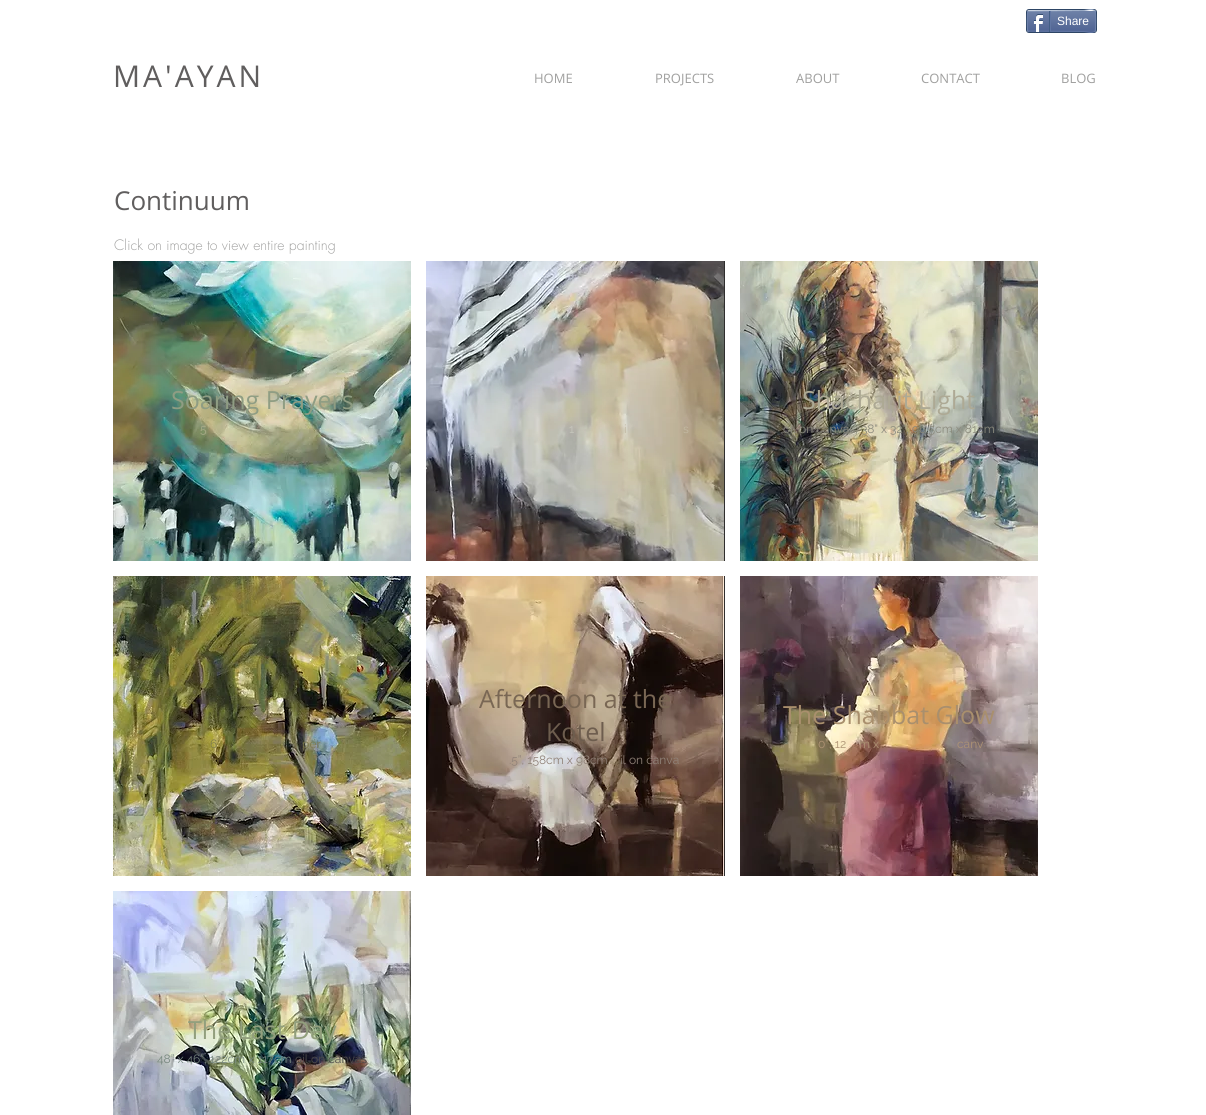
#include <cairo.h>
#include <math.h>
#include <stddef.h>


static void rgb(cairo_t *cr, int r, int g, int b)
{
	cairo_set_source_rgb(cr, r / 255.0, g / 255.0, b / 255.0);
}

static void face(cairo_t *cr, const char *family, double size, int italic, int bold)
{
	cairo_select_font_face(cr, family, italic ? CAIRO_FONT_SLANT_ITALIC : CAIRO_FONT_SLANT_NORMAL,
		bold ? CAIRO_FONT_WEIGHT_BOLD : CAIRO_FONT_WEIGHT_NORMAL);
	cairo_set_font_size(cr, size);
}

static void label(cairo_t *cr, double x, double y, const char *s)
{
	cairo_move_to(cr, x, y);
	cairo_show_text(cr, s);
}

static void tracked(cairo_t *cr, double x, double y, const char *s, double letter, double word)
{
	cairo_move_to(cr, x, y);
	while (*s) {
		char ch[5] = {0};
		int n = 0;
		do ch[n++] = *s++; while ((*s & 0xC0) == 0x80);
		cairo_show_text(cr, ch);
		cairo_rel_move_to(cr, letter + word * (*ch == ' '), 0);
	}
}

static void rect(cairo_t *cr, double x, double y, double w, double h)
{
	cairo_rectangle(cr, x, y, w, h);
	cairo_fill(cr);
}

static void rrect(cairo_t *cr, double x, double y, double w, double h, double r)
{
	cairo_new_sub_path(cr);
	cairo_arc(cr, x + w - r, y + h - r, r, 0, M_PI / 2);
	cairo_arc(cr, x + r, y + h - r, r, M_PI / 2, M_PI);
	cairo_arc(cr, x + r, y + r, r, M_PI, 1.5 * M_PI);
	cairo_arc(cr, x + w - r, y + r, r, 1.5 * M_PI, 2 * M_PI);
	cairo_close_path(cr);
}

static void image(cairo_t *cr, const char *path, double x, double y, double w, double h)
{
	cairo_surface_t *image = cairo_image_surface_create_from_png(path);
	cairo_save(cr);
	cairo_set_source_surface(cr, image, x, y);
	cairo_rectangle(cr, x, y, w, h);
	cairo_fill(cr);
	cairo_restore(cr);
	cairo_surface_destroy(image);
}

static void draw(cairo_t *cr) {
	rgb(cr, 255, 255, 255);
	cairo_paint(cr);
	rrect(cr, 1026.5, 9.5, 70, 23, 2.5);
	rgb(cr, 45, 69, 101);
	cairo_set_line_width(cr, 1);
	cairo_stroke(cr);
	image(cr, "image0.png", 1027, 11, 69, 21);
	cairo_new_path(cr);
	cairo_move_to(cr, 1028, 11);
	cairo_line_to(cr, 1083, 10.5);
	cairo_curve_to(cr, 1087, 10.5, 1092, 8, 1095, 11);
	rgb(cr, 154, 171, 198);
	cairo_stroke(cr);
	cairo_new_path(cr);
	cairo_move_to(cr, 1095, 11);
	cairo_curve_to(cr, 1096, 11.5, 1096, 30.5, 1095, 31);
	rgb(cr, 111, 131, 173);
	cairo_stroke(cr);
	cairo_new_path(cr);
	cairo_move_to(cr, 1095, 31);
	cairo_curve_to(cr, 1092, 34, 1087, 31.5, 1083, 31.5);
	cairo_line_to(cr, 1028, 31);
	rgb(cr, 97, 118, 163);
	cairo_stroke(cr);
	cairo_new_path(cr);
	cairo_move_to(cr, 1028, 31);
	cairo_curve_to(cr, 1027, 30.5, 1027, 11.5, 1028, 11);
	rgb(cr, 111, 131, 173);
	cairo_stroke(cr);
	image(cr, "image1.png", 1033, 14, 10, 18);
	rgb(cr, 66, 94, 133);
	rect(cr, 1049, 11, 1, 21);
	face(cr, "Liberation Sans", 12, 0, 0);
	rgb(cr, 255, 255, 255);
	label(cr, 1057, 25, "Share");
	rgb(cr, 97, 118, 163);
	rect(cr, 1050, 11, 1, 20);
	face(cr, "Open Sans", 30, 0, 0);
	rgb(cr, 96, 94, 94);
	tracked(cr, 113, 87, "MA'AYAN", 3, 0);
	face(cr, "Open Sans", 13, 0, 0);
	rgb(cr, 160, 160, 159);
	label(cr, 534, 83, "HOME");
	label(cr, 655, 83, "PROJECTS");
	label(cr, 796, 83, "ABOUT");
	label(cr, 921, 83, "CONTACT");
	label(cr, 1061, 83, "BLOG");
	face(cr, "Open Sans", 26, 0, 0);
	rgb(cr, 96, 94, 94);
	label(cr, 114, 210, "Continuum");
	face(cr, "futura Light", 14, 0, 0);
	rgb(cr, 160, 160, 159);
	label(cr, 114, 250, "Click on image to view entire painting");
	image(cr, "image2.png", 113, 261, 298, 300);
	face(cr, "Open Sans", 25, 0, 0);
	rgb(cr, 143, 157, 131);
	label(cr, 171, 409, "Soaring Prayers");
	face(cr, "Raleway", 12, 0, 0);
	rgb(cr, 170, 172, 137);
	label(cr, 200, 433, "5");
	rgb(cr, 47, 46, 46);
	rect(cr, 724, 261, 1, 300);
	image(cr, "image3.png", 426, 261, 298, 300);
	rgb(cr, 198, 198, 188);
	label(cr, 569, 433, "1");
	rgb(cr, 194, 185, 163);
	label(cr, 624, 433, "i");
	label(cr, 683, 433, "s");
	image(cr, "image4.png", 740, 261, 298, 300);
	face(cr, "Open Sans", 25, 0, 0);
	rgb(cr, 173, 169, 148);
	label(cr, 802, 409, "Shacharit Light");
	face(cr, "Raleway", 12, 0, 0);
	rgb(cr, 139, 138, 125);
	label(cr, 783, 433, "oil on canvas, 38\" x 32\", 96.5cm x 81cm");
	image(cr, "image5.png", 113, 576, 298, 300);
	rgb(cr, 124, 121, 77);
	label(cr, 210, 748, "6");
	label(cr, 302, 748, "per");
	rgb(cr, 47, 46, 46);
	rect(cr, 724, 576, 1, 300);
	image(cr, "image6.png", 426, 576, 298, 300);
	face(cr, "Open Sans", 25, 0, 0);
	rgb(cr, 121, 103, 84);
	label(cr, 479, 708, "Afternoon at the");
	rgb(cr, 109, 93, 78);
	label(cr, 546, 741, "Kotel");
	face(cr, "Raleway", 12, 0, 0);
	rgb(cr, 144, 130, 120);
	label(cr, 509, 764, ".5”, 158cm x 98cm");
	label(cr, 620, 764, "il on canva");
	image(cr, "image7.png", 740, 576, 298, 300);
	face(cr, "Open Sans", 25, 0, 0);
	rgb(cr, 169, 143, 109);
	label(cr, 783, 724, "The Shabbat Glow");
	face(cr, "Raleway", 12, 0, 0);
	rgb(cr, 174, 147, 116);
	label(cr, 818, 748, "0”, 12");
	label(cr, 859, 748, "m x");
	label(cr, 957, 748, "canv");
	image(cr, "image8.png", 113, 891, 298, 224);
	face(cr, "Open Sans", 25, 0, 0);
	rgb(cr, 146, 159, 125);
	label(cr, 188, 1039, "The Last Day");
	face(cr, "Raleway", 12, 0, 0);
	rgb(cr, 119, 135, 127);
	label(cr, 157, 1063, "48” x 46”, 122cm x 117cm");
	rgb(cr, 78, 75, 74);
	label(cr, 295, 1063, "oil on canvas");
}

int main(void) {
	cairo_surface_t *surface = cairo_image_surface_create(CAIRO_FORMAT_RGB24, 1206, 1115);
	cairo_t *cr = cairo_create(surface);
	cairo_font_options_t *options = cairo_font_options_create();
	cairo_font_options_set_hint_metrics(options, CAIRO_HINT_METRICS_OFF);
	cairo_font_options_set_hint_style(options, CAIRO_HINT_STYLE_NONE);
	cairo_set_font_options(cr, options);
	cairo_set_miter_limit(cr, 4);
	draw(cr);
	cairo_surface_write_to_png(surface, "render.png");
	cairo_font_options_destroy(options);
	cairo_destroy(cr);
	cairo_surface_destroy(surface);
	return 0;
}
